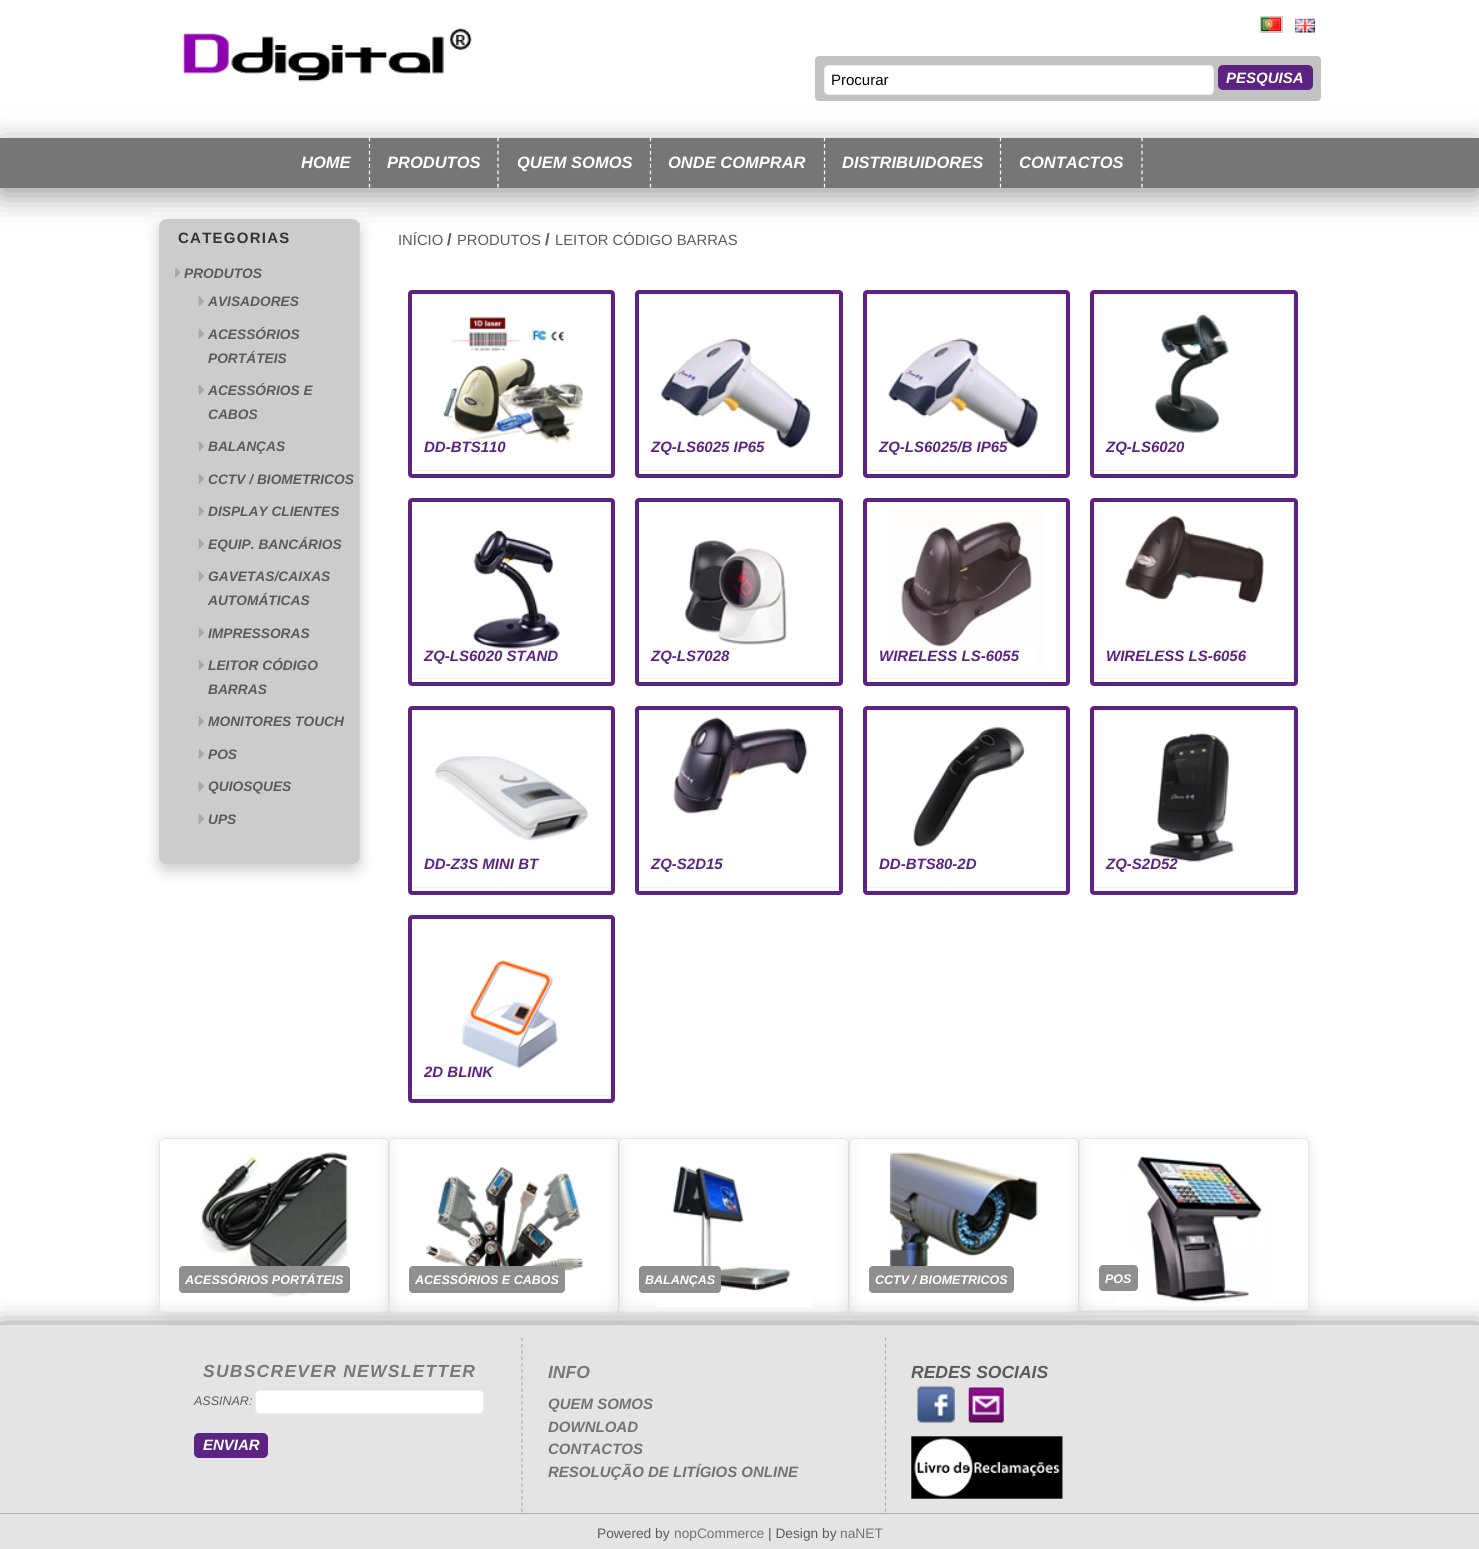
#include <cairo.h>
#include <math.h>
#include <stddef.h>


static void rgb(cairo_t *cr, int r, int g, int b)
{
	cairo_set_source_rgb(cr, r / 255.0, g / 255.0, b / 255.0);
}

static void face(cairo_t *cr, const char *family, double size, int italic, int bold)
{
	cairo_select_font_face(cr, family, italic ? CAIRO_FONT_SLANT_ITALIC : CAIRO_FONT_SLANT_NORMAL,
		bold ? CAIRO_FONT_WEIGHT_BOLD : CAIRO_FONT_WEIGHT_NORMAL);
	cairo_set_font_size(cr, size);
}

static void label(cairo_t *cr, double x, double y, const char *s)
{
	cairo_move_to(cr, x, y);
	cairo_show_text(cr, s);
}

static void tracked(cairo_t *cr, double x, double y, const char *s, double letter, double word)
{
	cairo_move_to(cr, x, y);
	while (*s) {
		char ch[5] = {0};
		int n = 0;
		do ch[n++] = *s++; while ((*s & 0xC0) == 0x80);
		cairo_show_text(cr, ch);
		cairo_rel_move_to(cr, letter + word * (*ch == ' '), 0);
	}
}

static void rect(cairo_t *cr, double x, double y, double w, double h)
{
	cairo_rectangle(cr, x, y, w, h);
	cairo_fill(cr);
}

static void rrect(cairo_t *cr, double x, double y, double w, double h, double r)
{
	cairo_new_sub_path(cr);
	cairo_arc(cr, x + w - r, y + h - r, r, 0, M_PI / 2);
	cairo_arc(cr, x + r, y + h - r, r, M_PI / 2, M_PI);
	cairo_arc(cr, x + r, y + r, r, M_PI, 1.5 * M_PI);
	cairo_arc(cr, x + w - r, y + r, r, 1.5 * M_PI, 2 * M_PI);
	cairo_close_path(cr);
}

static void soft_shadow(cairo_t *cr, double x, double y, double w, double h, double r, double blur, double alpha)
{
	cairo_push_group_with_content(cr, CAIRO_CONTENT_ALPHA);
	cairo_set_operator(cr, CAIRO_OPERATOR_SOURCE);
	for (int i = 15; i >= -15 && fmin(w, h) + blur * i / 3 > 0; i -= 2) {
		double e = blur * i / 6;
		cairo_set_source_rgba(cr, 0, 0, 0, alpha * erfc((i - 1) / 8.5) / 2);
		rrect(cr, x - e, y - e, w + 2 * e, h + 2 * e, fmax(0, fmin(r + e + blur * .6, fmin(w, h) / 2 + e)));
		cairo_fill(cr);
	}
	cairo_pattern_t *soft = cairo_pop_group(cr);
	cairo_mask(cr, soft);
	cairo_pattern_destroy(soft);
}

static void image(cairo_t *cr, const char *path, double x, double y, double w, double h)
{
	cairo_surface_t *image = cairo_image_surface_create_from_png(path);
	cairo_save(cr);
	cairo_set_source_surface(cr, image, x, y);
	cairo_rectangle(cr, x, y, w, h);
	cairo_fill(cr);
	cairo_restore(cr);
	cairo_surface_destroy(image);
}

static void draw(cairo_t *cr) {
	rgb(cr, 255, 255, 255);
	cairo_paint(cr);
	image(cr, "image0.png", 183, 28, 289, 54);
	cairo_rectangle(cr, 1260.5, 16.5, 22, 16);
	rgb(cr, 204, 204, 204);
	cairo_set_line_width(cr, 1);
	cairo_stroke(cr);
	image(cr, "image1.png", 1261, 17, 21, 15);
	image(cr, "image2.png", 1295, 18, 20, 15);
	rgb(cr, 0, 0, 0);
	soft_shadow(cr, 0, 145, 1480, 50, 0, 15, 0.4);
	rgb(cr, 195, 194, 194);
	rrect(cr, 815, 56, 506, 45, 4);
	cairo_fill(cr);
	rgb(cr, 255, 255, 255);
	rrect(cr, 824.5, 65.5, 389, 29, 4.5);
	cairo_fill_preserve(cr);
	rgb(cr, 238, 238, 238);
	cairo_stroke(cr);
	face(cr, "Liberation Sans", 15, 0, 0);
	rgb(cr, 0, 0, 0);
	label(cr, 831, 85, "Procurar");
	rgb(cr, 93, 35, 130);
	rrect(cr, 1218, 65, 95, 25, 5);
	cairo_fill(cr);
	face(cr, "Liberation Sans", 15, 1, 1);
	rgb(cr, 255, 255, 255);
	label(cr, 1226, 83, "PESQUISA");
	rgb(cr, 118, 118, 118);
	rect(cr, 0, 138, 1479, 50);
	cairo_new_path(cr);
	cairo_move_to(cr, 369.5, 137.5);
	cairo_line_to(cr, 369.5, 187.5);
	rgb(cr, 255, 255, 255);
	cairo_set_line_width(cr, 1.2);
	cairo_set_dash(cr, (double[]){3.75, 2.86}, 2, 0);
	cairo_stroke(cr);
	face(cr, "Liberation Sans", 16.5, 1, 1);
	label(cr, 301, 168, "HOME");
	cairo_new_path(cr);
	cairo_move_to(cr, 498, 137.5);
	cairo_line_to(cr, 498, 187.5);
	cairo_stroke(cr);
	label(cr, 387, 168, "PRODUTOS");
	cairo_new_path(cr);
	cairo_move_to(cr, 650.5, 137.5);
	cairo_line_to(cr, 650.5, 187.5);
	cairo_stroke(cr);
	label(cr, 517, 168, "QUEM SOMOS");
	cairo_new_path(cr);
	cairo_move_to(cr, 824.5, 137.5);
	cairo_line_to(cr, 824.5, 187.5);
	cairo_stroke(cr);
	label(cr, 668, 168, "ONDE COMPRAR");
	cairo_new_path(cr);
	cairo_move_to(cr, 1000.5, 137.5);
	cairo_line_to(cr, 1000.5, 187.5);
	cairo_stroke(cr);
	label(cr, 842, 168, "DISTRIBUIDORES");
	cairo_new_path(cr);
	cairo_move_to(cr, 1142, 137.5);
	cairo_line_to(cr, 1142, 187.5);
	cairo_stroke(cr);
	label(cr, 1019, 168, "CONTACTOS");
	rgb(cr, 0, 0, 0);
	soft_shadow(cr, 159, 226, 201, 645, 8, 7.5, 0.2);
	rgb(cr, 204, 204, 204);
	rrect(cr, 159, 219, 201, 645, 8);
	cairo_fill(cr);
	rgb(cr, 211, 211, 211);
	rect(cr, 359, 223, 1, 637);
	face(cr, "Liberation Sans", 15, 0, 1);
	rgb(cr, 51, 51, 51);
	tracked(cr, 178, 243, "CATEGORIAS", 1.25, 0);
	image(cr, "image3.png", 175, 267, 6, 11);
	face(cr, "Liberation Sans", 13.75, 1, 1);
	rgb(cr, 92, 91, 91);
	label(cr, 184, 278, "PRODUTOS");
	image(cr, "image4.png", 198, 296, 6, 11);
	label(cr, 208, 306, "AVISADORES");
	image(cr, "image5.png", 198, 328, 6, 11);
	label(cr, 208, 339, "ACESSÓRIOS");
	label(cr, 208, 363, "PORTÁTEIS");
	image(cr, "image6.png", 198, 385, 6, 11);
	label(cr, 208, 395, "ACESSÓRIOS E");
	label(cr, 208, 419, "CABOS");
	image(cr, "image4.png", 198, 441, 6, 11);
	label(cr, 208, 451, "BALANÇAS");
	image(cr, "image5.png", 198, 473, 6, 11);
	label(cr, 208, 484, "CCTV / BIOMETRICOS");
	image(cr, "image4.png", 198, 506, 6, 11);
	label(cr, 208, 516, "DISPLAY CLIENTES");
	image(cr, "image5.png", 198, 538, 6, 11);
	label(cr, 208, 549, "EQUIP. BANCÁRIOS");
	image(cr, "image4.png", 198, 571, 6, 11);
	label(cr, 208, 581, "GAVETAS/CAIXAS");
	label(cr, 208, 605, "AUTOMÁTICAS");
	image(cr, "image7.png", 198, 627, 6, 11);
	label(cr, 208, 638, "IMPRESSORAS");
	image(cr, "image6.png", 198, 660, 6, 11);
	label(cr, 208, 670, "LEITOR CÓDIGO");
	label(cr, 208, 694, "BARRAS");
	image(cr, "image4.png", 198, 716, 6, 11);
	label(cr, 208, 726, "MONITORES TOUCH");
	image(cr, "image5.png", 198, 748, 6, 11);
	label(cr, 208, 759, "POS");
	image(cr, "image8.png", 198, 781, 6, 11);
	label(cr, 208, 791, "QUIOSQUES");
	image(cr, "image5.png", 198, 813, 6, 11);
	label(cr, 208, 824, "UPS");
	face(cr, "Liberation Sans", 14.8, 0, 0);
	label(cr, 398, 245, "INÍCIO");
	face(cr, "Liberation Sans", 16.5, 0, 1);
	label(cr, 447, 245, "/");
	face(cr, "Liberation Sans", 14.8, 0, 0);
	label(cr, 457, 245, "PRODUTOS");
	face(cr, "Liberation Sans", 16.5, 0, 1);
	label(cr, 545, 245, "/");
	face(cr, "Liberation Sans", 14.8, 0, 0);
	label(cr, 555, 245, "LEITOR CÓDIGO BARRAS");
	cairo_rectangle(cr, 411.5, 294.5, 199, 176);
	rgb(cr, 240, 240, 240);
	cairo_set_line_width(cr, 1);
	cairo_set_dash(cr, NULL, 0, 0);
	cairo_stroke(cr);
	image(cr, "image9.png", 443, 317, 140, 127);
	rrect(cr, 410, 292, 203, 184, 2);
	rgb(cr, 93, 35, 130);
	cairo_set_line_width(cr, 4);
	cairo_stroke(cr);
	face(cr, "Liberation Sans", 15, 1, 1);
	label(cr, 424, 452, "DD-BTS110");
	cairo_rectangle(cr, 639.5, 294.5, 199, 176);
	rgb(cr, 240, 240, 240);
	cairo_set_line_width(cr, 1);
	cairo_stroke(cr);
	image(cr, "image10.png", 661, 338, 150, 110);
	rrect(cr, 637, 292, 204, 184, 2);
	rgb(cr, 93, 35, 130);
	cairo_set_line_width(cr, 4);
	cairo_stroke(cr);
	label(cr, 651, 452, "ZQ-LS6025 IP65");
	cairo_rectangle(cr, 866.5, 294.5, 199, 176);
	rgb(cr, 240, 240, 240);
	cairo_set_line_width(cr, 1);
	cairo_stroke(cr);
	image(cr, "image11.png", 888, 338, 151, 110);
	rrect(cr, 865, 292, 203, 184, 2);
	rgb(cr, 93, 35, 130);
	cairo_set_line_width(cr, 4);
	cairo_stroke(cr);
	label(cr, 879, 452, "ZQ-LS6025/B IP65");
	cairo_rectangle(cr, 1094.5, 294.5, 199, 176);
	rgb(cr, 240, 240, 240);
	cairo_set_line_width(cr, 1);
	cairo_stroke(cr);
	image(cr, "image12.png", 1154, 313, 75, 120);
	rrect(cr, 1092, 292, 204, 184, 2);
	rgb(cr, 93, 35, 130);
	cairo_set_line_width(cr, 4);
	cairo_stroke(cr);
	label(cr, 1106, 452, "ZQ-LS6020");
	cairo_rectangle(cr, 411.5, 501.5, 199, 177);
	rgb(cr, 240, 240, 240);
	cairo_set_line_width(cr, 1);
	cairo_stroke(cr);
	image(cr, "image13.png", 472, 530, 89, 119);
	rrect(cr, 410, 500, 203, 184, 2);
	rgb(cr, 93, 35, 130);
	cairo_set_line_width(cr, 4);
	cairo_stroke(cr);
	label(cr, 424, 661, "ZQ-LS6020 STAND");
	cairo_rectangle(cr, 639.5, 501.5, 199, 177);
	rgb(cr, 240, 240, 240);
	cairo_set_line_width(cr, 1);
	cairo_stroke(cr);
	image(cr, "image14.png", 684, 540, 103, 105);
	rrect(cr, 637, 500, 204, 184, 2);
	rgb(cr, 93, 35, 130);
	cairo_set_line_width(cr, 4);
	cairo_stroke(cr);
	label(cr, 651, 661, "ZQ-LS7028");
	cairo_rectangle(cr, 866.5, 501.5, 199, 177);
	rgb(cr, 240, 240, 240);
	cairo_set_line_width(cr, 1);
	cairo_stroke(cr);
	image(cr, "image15.png", 888, 509, 157, 161);
	rrect(cr, 865, 500, 203, 184, 2);
	rgb(cr, 93, 35, 130);
	cairo_set_line_width(cr, 4);
	cairo_stroke(cr);
	label(cr, 879, 661, "WIRELESS LS-6055");
	cairo_rectangle(cr, 1094.5, 501.5, 199, 177);
	rgb(cr, 240, 240, 240);
	cairo_set_line_width(cr, 1);
	cairo_stroke(cr);
	image(cr, "image16.png", 1124, 516, 140, 87);
	rrect(cr, 1092, 500, 204, 184, 2);
	rgb(cr, 93, 35, 130);
	cairo_set_line_width(cr, 4);
	cairo_stroke(cr);
	label(cr, 1106, 661, "WIRELESS LS-6056");
	cairo_rectangle(cr, 411.5, 710.5, 199, 177);
	rgb(cr, 240, 240, 240);
	cairo_set_line_width(cr, 1);
	cairo_stroke(cr);
	image(cr, "image17.png", 435, 756, 154, 85);
	rrect(cr, 410, 708, 203, 185, 2);
	rgb(cr, 93, 35, 130);
	cairo_set_line_width(cr, 4);
	cairo_stroke(cr);
	label(cr, 424, 869, "DD-Z3S MINI BT");
	cairo_rectangle(cr, 639.5, 710.5, 199, 177);
	rgb(cr, 240, 240, 240);
	cairo_set_line_width(cr, 1);
	cairo_stroke(cr);
	image(cr, "image18.png", 673, 717, 135, 97);
	rrect(cr, 637, 708, 204, 185, 2);
	rgb(cr, 93, 35, 130);
	cairo_set_line_width(cr, 4);
	cairo_stroke(cr);
	label(cr, 651, 869, "ZQ-S2D15");
	cairo_rectangle(cr, 866.5, 710.5, 199, 177);
	rgb(cr, 240, 240, 240);
	cairo_set_line_width(cr, 1);
	cairo_stroke(cr);
	image(cr, "image19.png", 913, 726, 112, 121);
	rrect(cr, 865, 708, 203, 185, 2);
	rgb(cr, 93, 35, 130);
	cairo_set_line_width(cr, 4);
	cairo_stroke(cr);
	label(cr, 879, 869, "DD-BTS80-2D");
	cairo_rectangle(cr, 1094.5, 710.5, 199, 177);
	rgb(cr, 240, 240, 240);
	cairo_set_line_width(cr, 1);
	cairo_stroke(cr);
	image(cr, "image20.png", 1149, 733, 85, 129);
	rrect(cr, 1092, 708, 204, 185, 2);
	rgb(cr, 93, 35, 130);
	cairo_set_line_width(cr, 4);
	cairo_stroke(cr);
	label(cr, 1106, 869, "ZQ-S2D52");
	cairo_rectangle(cr, 411.5, 919.5, 199, 176);
	rgb(cr, 240, 240, 240);
	cairo_set_line_width(cr, 1);
	cairo_stroke(cr);
	image(cr, "image21.png", 461, 959, 97, 110);
	rrect(cr, 410, 917, 203, 184, 2);
	rgb(cr, 93, 35, 130);
	cairo_set_line_width(cr, 4);
	cairo_stroke(cr);
	label(cr, 424, 1077, "2D BLINK");
	rgb(cr, 0, 0, 0);
	soft_shadow(cr, 0, 1333, 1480, 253, 0, 15, 0.8);
	rgb(cr, 228, 228, 228);
	rect(cr, 0, 1325, 1479, 224);
	cairo_save(cr);
	cairo_set_fill_rule(cr, CAIRO_FILL_RULE_EVEN_ODD);
	cairo_new_path(cr);
	cairo_move_to(cr, 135, 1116);
	cairo_line_to(cr, 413, 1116);
	cairo_line_to(cr, 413, 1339);
	cairo_line_to(cr, 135, 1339);
	cairo_close_path(cr);
	cairo_move_to(cr, 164, 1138);
	cairo_line_to(cr, 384, 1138);
	cairo_curve_to(cr, 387, 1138, 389, 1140, 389, 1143);
	cairo_line_to(cr, 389, 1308);
	cairo_curve_to(cr, 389, 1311, 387, 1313, 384, 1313);
	cairo_line_to(cr, 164, 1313);
	cairo_curve_to(cr, 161, 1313, 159, 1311, 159, 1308);
	cairo_line_to(cr, 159, 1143);
	cairo_curve_to(cr, 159, 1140, 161, 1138, 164, 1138);
	cairo_close_path(cr);
	cairo_clip(cr);
	rgb(cr, 0, 0, 0);
	soft_shadow(cr, 159, 1140, 230, 175, 5, 7.5, 0.1);
	cairo_restore(cr);
	rrect(cr, 159.5, 1138.5, 229, 174, 4.5);
	rgb(cr, 232, 229, 229);
	cairo_set_line_width(cr, 1);
	cairo_stroke(cr);
	image(cr, "image22.png", 200, 1152, 148, 145);
	rgb(cr, 143, 143, 143);
	rrect(cr, 179, 1266, 171, 27, 4);
	cairo_fill(cr);
	face(cr, "Liberation Sans", 12.5, 1, 1);
	rgb(cr, 255, 255, 255);
	label(cr, 185, 1284, "ACESSÓRIOS PORTÁTEIS");
	cairo_save(cr);
	cairo_set_fill_rule(cr, CAIRO_FILL_RULE_EVEN_ODD);
	cairo_new_path(cr);
	cairo_move_to(cr, 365, 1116);
	cairo_line_to(cr, 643, 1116);
	cairo_line_to(cr, 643, 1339);
	cairo_line_to(cr, 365, 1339);
	cairo_close_path(cr);
	cairo_move_to(cr, 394, 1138);
	cairo_line_to(cr, 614, 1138);
	cairo_curve_to(cr, 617, 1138, 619, 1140, 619, 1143);
	cairo_line_to(cr, 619, 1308);
	cairo_curve_to(cr, 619, 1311, 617, 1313, 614, 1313);
	cairo_line_to(cr, 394, 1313);
	cairo_curve_to(cr, 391, 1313, 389, 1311, 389, 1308);
	cairo_line_to(cr, 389, 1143);
	cairo_curve_to(cr, 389, 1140, 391, 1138, 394, 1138);
	cairo_close_path(cr);
	cairo_clip(cr);
	rgb(cr, 0, 0, 0);
	soft_shadow(cr, 389, 1140, 230, 175, 5, 7.5, 0.1);
	cairo_restore(cr);
	rrect(cr, 389.5, 1138.5, 229, 174, 4.5);
	rgb(cr, 232, 229, 229);
	cairo_stroke(cr);
	image(cr, "image23.png", 426, 1167, 157, 104);
	rgb(cr, 143, 143, 143);
	rrect(cr, 409, 1266, 156, 27, 4);
	cairo_fill(cr);
	rgb(cr, 255, 255, 255);
	label(cr, 415, 1284, "ACESSÓRIOS E CABOS");
	cairo_save(cr);
	cairo_set_fill_rule(cr, CAIRO_FILL_RULE_EVEN_ODD);
	cairo_new_path(cr);
	cairo_move_to(cr, 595, 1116);
	cairo_line_to(cr, 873, 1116);
	cairo_line_to(cr, 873, 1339);
	cairo_line_to(cr, 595, 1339);
	cairo_close_path(cr);
	cairo_move_to(cr, 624, 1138);
	cairo_line_to(cr, 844, 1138);
	cairo_curve_to(cr, 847, 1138, 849, 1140, 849, 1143);
	cairo_line_to(cr, 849, 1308);
	cairo_curve_to(cr, 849, 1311, 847, 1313, 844, 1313);
	cairo_line_to(cr, 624, 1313);
	cairo_curve_to(cr, 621, 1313, 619, 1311, 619, 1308);
	cairo_line_to(cr, 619, 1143);
	cairo_curve_to(cr, 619, 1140, 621, 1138, 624, 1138);
	cairo_close_path(cr);
	cairo_clip(cr);
	rgb(cr, 0, 0, 0);
	soft_shadow(cr, 619, 1140, 230, 175, 5, 7.5, 0.1);
	cairo_restore(cr);
	rrect(cr, 619.5, 1138.5, 229, 174, 4.5);
	rgb(cr, 232, 229, 229);
	cairo_stroke(cr);
	image(cr, "image24.png", 656, 1166, 156, 142);
	rgb(cr, 143, 143, 143);
	rrect(cr, 639, 1266, 82, 27, 4);
	cairo_fill(cr);
	rgb(cr, 255, 255, 255);
	label(cr, 645, 1284, "BALANÇAS");
	cairo_save(cr);
	cairo_set_fill_rule(cr, CAIRO_FILL_RULE_EVEN_ODD);
	cairo_new_path(cr);
	cairo_move_to(cr, 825, 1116);
	cairo_line_to(cr, 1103, 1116);
	cairo_line_to(cr, 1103, 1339);
	cairo_line_to(cr, 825, 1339);
	cairo_close_path(cr);
	cairo_move_to(cr, 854, 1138);
	cairo_line_to(cr, 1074, 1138);
	cairo_curve_to(cr, 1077, 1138, 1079, 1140, 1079, 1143);
	cairo_line_to(cr, 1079, 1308);
	cairo_curve_to(cr, 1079, 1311, 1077, 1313, 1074, 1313);
	cairo_line_to(cr, 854, 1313);
	cairo_curve_to(cr, 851, 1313, 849, 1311, 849, 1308);
	cairo_line_to(cr, 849, 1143);
	cairo_curve_to(cr, 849, 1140, 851, 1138, 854, 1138);
	cairo_close_path(cr);
	cairo_clip(cr);
	rgb(cr, 0, 0, 0);
	soft_shadow(cr, 849, 1140, 230, 175, 5, 7.5, 0.1);
	cairo_restore(cr);
	rrect(cr, 849.5, 1138.5, 229, 174, 4.5);
	rgb(cr, 232, 229, 229);
	cairo_stroke(cr);
	image(cr, "image25.png", 889, 1152, 149, 141);
	rgb(cr, 143, 143, 143);
	rrect(cr, 869, 1266, 145, 27, 4);
	cairo_fill(cr);
	rgb(cr, 255, 255, 255);
	label(cr, 875, 1284, "CCTV / BIOMETRICOS");
	cairo_save(cr);
	cairo_set_fill_rule(cr, CAIRO_FILL_RULE_EVEN_ODD);
	cairo_new_path(cr);
	cairo_move_to(cr, 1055, 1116);
	cairo_line_to(cr, 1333, 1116);
	cairo_line_to(cr, 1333, 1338);
	cairo_line_to(cr, 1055, 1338);
	cairo_close_path(cr);
	cairo_move_to(cr, 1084, 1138);
	cairo_line_to(cr, 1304, 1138);
	cairo_curve_to(cr, 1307, 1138, 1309, 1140, 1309, 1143);
	cairo_line_to(cr, 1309, 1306);
	cairo_curve_to(cr, 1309, 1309, 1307, 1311, 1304, 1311);
	cairo_line_to(cr, 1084, 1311);
	cairo_curve_to(cr, 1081, 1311, 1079, 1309, 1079, 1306);
	cairo_line_to(cr, 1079, 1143);
	cairo_curve_to(cr, 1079, 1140, 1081, 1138, 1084, 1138);
	cairo_close_path(cr);
	cairo_clip(cr);
	rgb(cr, 0, 0, 0);
	soft_shadow(cr, 1079, 1140, 230, 174, 5, 7.5, 0.1);
	cairo_restore(cr);
	rrect(cr, 1079.5, 1138.5, 229, 172, 4.5);
	rgb(cr, 232, 229, 229);
	cairo_stroke(cr);
	image(cr, "image26.png", 1116, 1156, 156, 150);
	rgb(cr, 143, 143, 143);
	rrect(cr, 1099, 1265, 39, 26, 4);
	cairo_fill(cr);
	rgb(cr, 255, 255, 255);
	label(cr, 1105, 1283, "POS");
	face(cr, "Liberation Sans", 17.5, 1, 1);
	rgb(cr, 120, 120, 120);
	tracked(cr, 203, 1377, "SUBSCREVER NEWSLETTER", 1.25, 0);
	face(cr, "Liberation Sans", 12.5, 1, 0);
	rgb(cr, 92, 91, 91);
	label(cr, 194, 1405, "ASSINAR:");
	rgb(cr, 255, 255, 255);
	rrect(cr, 255.5, 1390.5, 228, 23, 4.5);
	cairo_fill_preserve(cr);
	rgb(cr, 238, 238, 238);
	cairo_stroke(cr);
	rgb(cr, 93, 35, 130);
	rrect(cr, 194, 1433, 74, 25, 5);
	cairo_fill(cr);
	face(cr, "Liberation Sans", 15, 1, 1);
	rgb(cr, 255, 255, 255);
	label(cr, 203, 1450, "ENVIAR");
	cairo_new_path(cr);
	cairo_move_to(cr, 522, 1337.5);
	cairo_line_to(cr, 522, 1512.5);
	rgb(cr, 177, 174, 174);
	cairo_set_line_width(cr, 1.2);
	cairo_set_dash(cr, (double[]){3.75, 2.59}, 2, 0);
	cairo_stroke(cr);
	face(cr, "Liberation Sans", 17.5, 1, 1);
	rgb(cr, 120, 120, 120);
	label(cr, 548, 1378, "INFO");
	face(cr, "Liberation Sans", 15, 1, 1);
	rgb(cr, 117, 114, 114);
	label(cr, 548, 1409, "QUEM SOMOS");
	label(cr, 548, 1432, "DOWNLOAD");
	label(cr, 548, 1454, "CONTACTOS");
	label(cr, 548, 1477, "RESOLUÇÃO DE LITÍGIOS ONLINE");
	cairo_new_path(cr);
	cairo_move_to(cr, 885.5, 1337.5);
	cairo_line_to(cr, 885.5, 1512.5);
	rgb(cr, 177, 174, 174);
	cairo_stroke(cr);
	face(cr, "Liberation Sans", 17.5, 1, 1);
	rgb(cr, 92, 91, 91);
	label(cr, 911, 1378, "REDES SOCIAIS");
	image(cr, "image27.png", 917, 1386, 38, 37);
	image(cr, "image28.png", 968, 1387, 36, 36);
	image(cr, "image29.png", 911, 1436, 152, 63);
	rgb(cr, 177, 174, 174);
	rect(cr, 0, 1513, 1479, 1);
	face(cr, "Liberation Sans", 13.75, 0, 0);
	rgb(cr, 92, 91, 91);
	label(cr, 597, 1538, "Powered by");
	rgb(cr, 117, 114, 114);
	label(cr, 674, 1538, "nopCommerce");
	rgb(cr, 92, 91, 91);
	label(cr, 768, 1538, "| Design by");
	rgb(cr, 117, 114, 114);
	label(cr, 840, 1538, "naNET");
}

int main(void) {
	cairo_surface_t *surface = cairo_image_surface_create(CAIRO_FORMAT_RGB24, 1479, 1549);
	cairo_t *cr = cairo_create(surface);
	cairo_font_options_t *options = cairo_font_options_create();
	cairo_font_options_set_hint_metrics(options, CAIRO_HINT_METRICS_OFF);
	cairo_font_options_set_hint_style(options, CAIRO_HINT_STYLE_NONE);
	cairo_set_font_options(cr, options);
	cairo_set_miter_limit(cr, 4);
	draw(cr);
	cairo_surface_write_to_png(surface, "render.png");
	cairo_font_options_destroy(options);
	cairo_destroy(cr);
	cairo_surface_destroy(surface);
	return 0;
}
